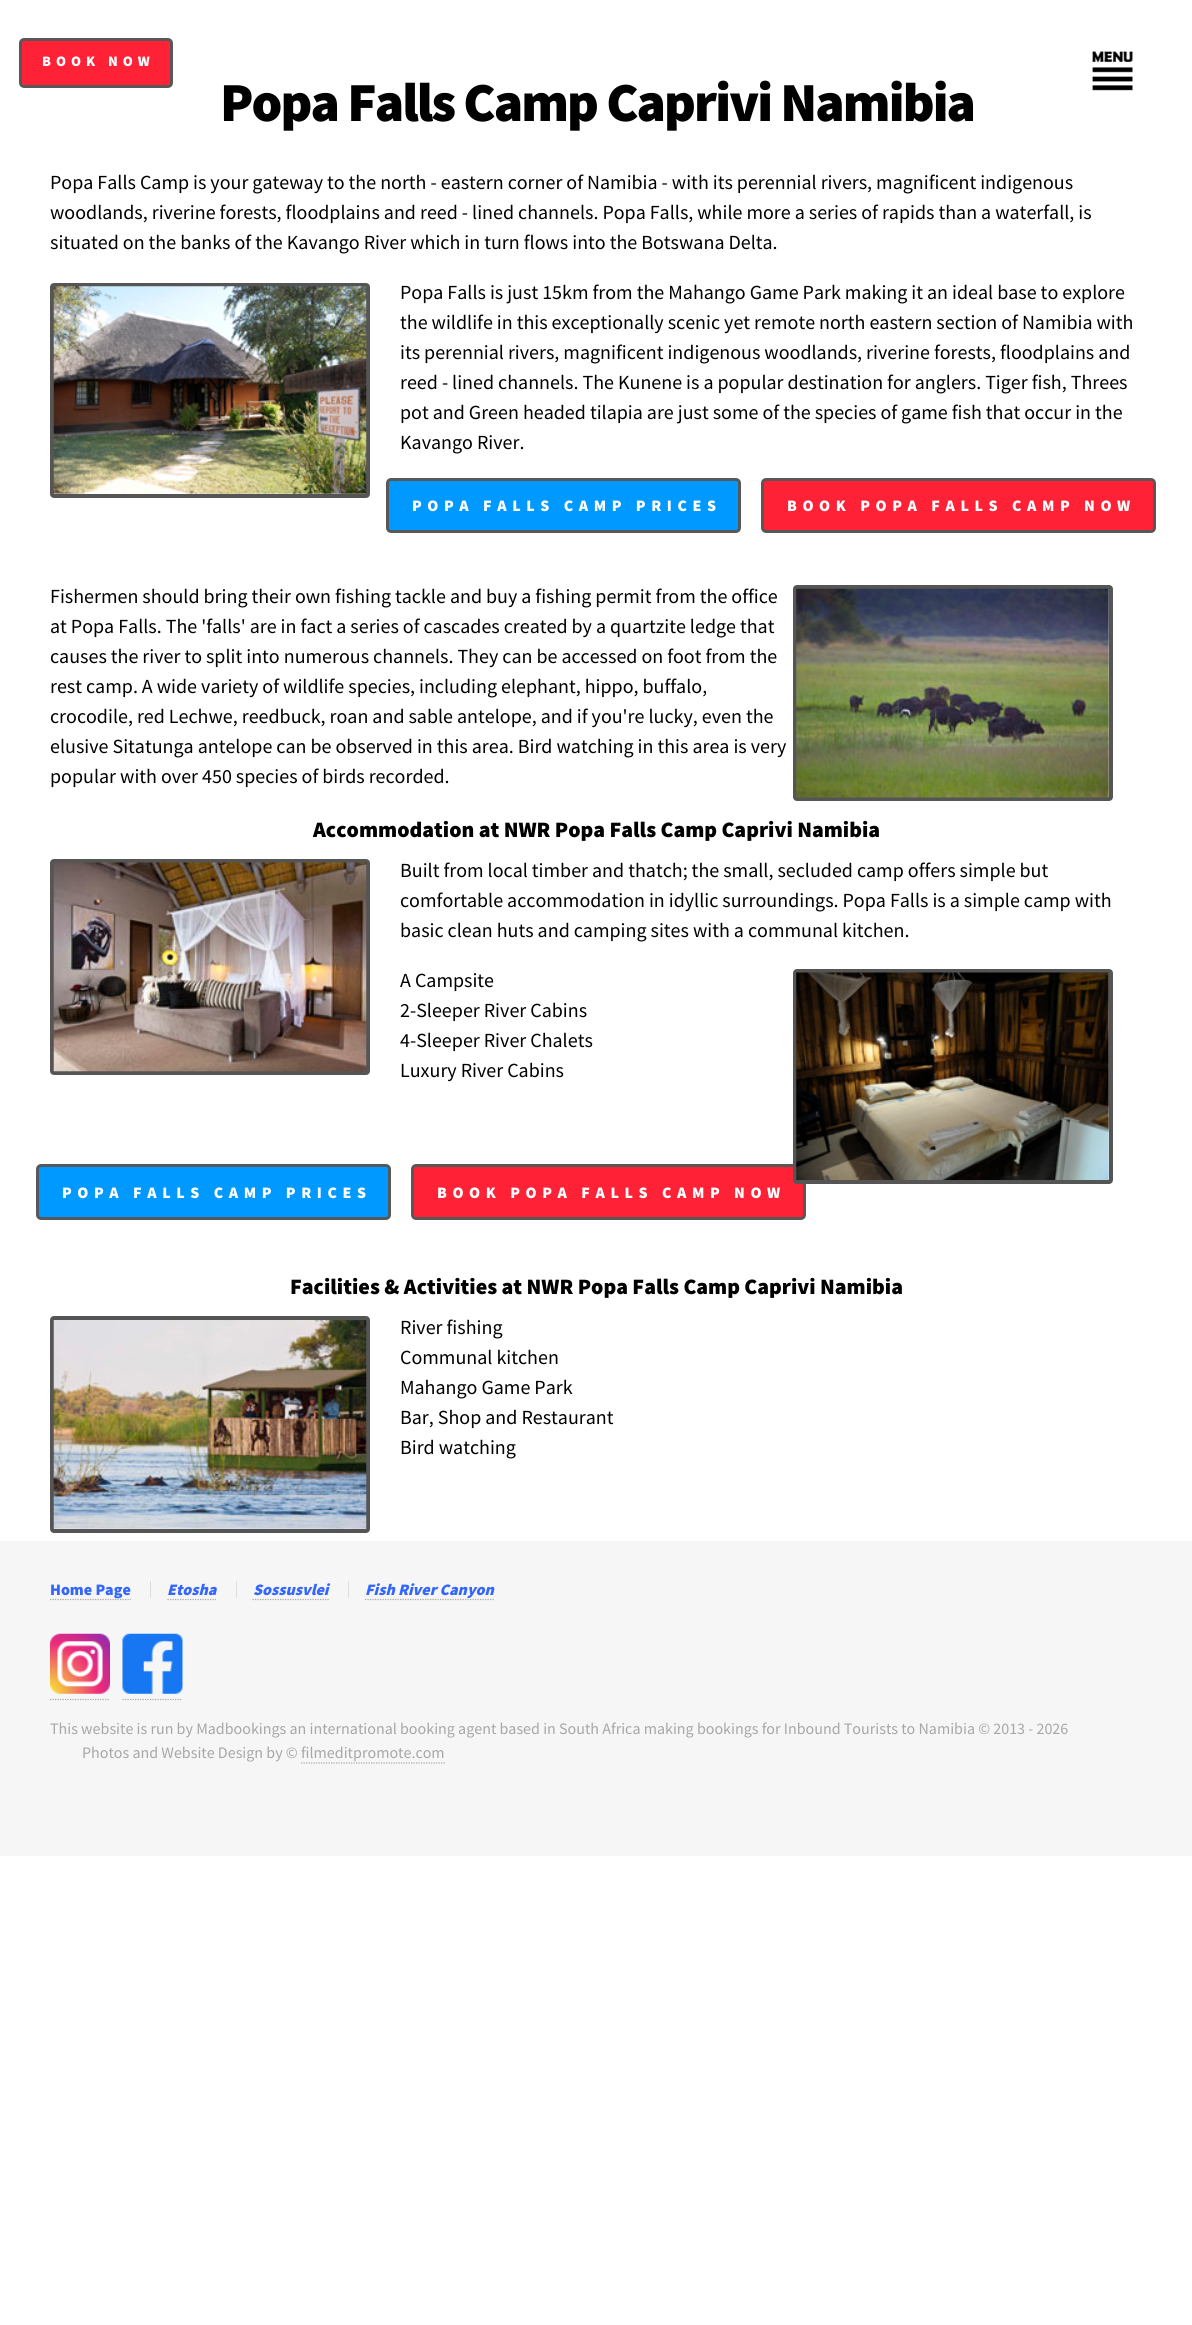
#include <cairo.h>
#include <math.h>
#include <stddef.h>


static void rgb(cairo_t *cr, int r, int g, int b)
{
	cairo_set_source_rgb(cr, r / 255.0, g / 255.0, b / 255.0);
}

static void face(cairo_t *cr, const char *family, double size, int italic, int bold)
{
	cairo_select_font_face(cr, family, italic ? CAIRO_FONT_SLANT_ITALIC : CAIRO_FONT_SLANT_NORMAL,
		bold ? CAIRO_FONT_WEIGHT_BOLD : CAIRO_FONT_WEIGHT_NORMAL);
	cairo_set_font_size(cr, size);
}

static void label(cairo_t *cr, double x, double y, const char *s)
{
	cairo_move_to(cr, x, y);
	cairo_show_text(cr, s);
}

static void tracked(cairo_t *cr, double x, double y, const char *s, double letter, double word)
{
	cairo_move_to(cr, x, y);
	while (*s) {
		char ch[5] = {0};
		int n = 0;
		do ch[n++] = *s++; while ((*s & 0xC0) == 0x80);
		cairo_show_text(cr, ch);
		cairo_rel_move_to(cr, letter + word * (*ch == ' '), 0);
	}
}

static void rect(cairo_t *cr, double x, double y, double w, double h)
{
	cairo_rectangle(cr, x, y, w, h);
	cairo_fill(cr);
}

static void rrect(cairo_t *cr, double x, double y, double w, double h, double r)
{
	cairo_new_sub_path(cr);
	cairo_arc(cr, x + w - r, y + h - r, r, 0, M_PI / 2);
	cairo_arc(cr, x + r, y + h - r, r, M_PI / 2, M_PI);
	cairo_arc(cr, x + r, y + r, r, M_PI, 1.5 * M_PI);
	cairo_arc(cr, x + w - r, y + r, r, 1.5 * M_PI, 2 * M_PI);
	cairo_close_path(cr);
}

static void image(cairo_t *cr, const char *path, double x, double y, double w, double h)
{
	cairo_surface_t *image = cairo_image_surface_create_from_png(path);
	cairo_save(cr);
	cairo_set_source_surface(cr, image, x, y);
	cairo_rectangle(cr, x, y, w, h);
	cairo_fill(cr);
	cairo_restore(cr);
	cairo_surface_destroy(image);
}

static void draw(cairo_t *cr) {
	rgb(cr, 255, 255, 255);
	cairo_paint(cr);
	rgb(cr, 255, 33, 53);
	rrect(cr, 20.5, 39.5, 151, 47, 3.5);
	cairo_fill_preserve(cr);
	rgb(cr, 88, 88, 88);
	cairo_set_line_width(cr, 3);
	cairo_stroke(cr);
	face(cr, "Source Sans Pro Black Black", 14.5, 0, 0);
	rgb(cr, 255, 255, 255);
	tracked(cr, 42, 66, "BOOK NOW", 5, 0);
	image(cr, "image0.png", 1092, 51, 41, 40);
	face(cr, "Source Sans Pro Black Black", 55, 0, 0);
	rgb(cr, 0, 0, 0);
	tracked(cr, 220, 121, "Popa Falls Camp Caprivi Namibia", -1.9, 0);
	face(cr, "Source Sans Pro", 20, 0, 0);
	label(cr, 50, 189, "Popa Falls Camp is your gateway to the north - eastern corner of Namibia - with its perennial rivers, magnificent indigenous");
	label(cr, 50, 219, "woodlands, riverine forests, floodplains and reed - lined channels. Popa Falls, while more a series of rapids than a waterfall, is");
	label(cr, 50, 249, "situated on the banks of the Kavango River which in turn flows into the Botswana Delta.");
	rrect(cr, 52, 285, 316, 211, 2);
	rgb(cr, 85, 85, 85);
	cairo_set_line_width(cr, 4);
	cairo_stroke(cr);
	image(cr, "image1.png", 53, 286, 314, 208);
	rgb(cr, 0, 0, 0);
	label(cr, 400, 299, "Popa Falls is just 15km from the Mahango Game Park making it an ideal base to explore");
	label(cr, 400, 329, "the wildlife in this exceptionally scenic yet remote north eastern section of Namibia with");
	label(cr, 400, 359, "its perennial rivers, magnificent indigenous woodlands, riverine forests, floodplains and");
	label(cr, 400, 389, "reed - lined channels. The Kunene is a popular destination for anglers. Tiger fish, Threes");
	label(cr, 400, 419, "pot and Green headed tilapia are just some of the species of game fish that occur in the");
	label(cr, 400, 449, "Kavango River.");
	rgb(cr, 0, 153, 255);
	rrect(cr, 387.5, 479.5, 352, 52, 3.5);
	cairo_fill_preserve(cr);
	rgb(cr, 88, 88, 88);
	cairo_set_line_width(cr, 3);
	cairo_stroke(cr);
	face(cr, "Source Sans Pro Black Black", 16, 0, 0);
	rgb(cr, 255, 255, 255);
	tracked(cr, 412, 511, "POPA FALLS CAMP PRICES", 5.6, 0);
	rgb(cr, 255, 33, 53);
	rrect(cr, 762.5, 479.5, 392, 52, 3.5);
	cairo_fill_preserve(cr);
	rgb(cr, 88, 88, 88);
	cairo_stroke(cr);
	rgb(cr, 255, 255, 255);
	tracked(cr, 787, 511, "BOOK POPA FALLS CAMP NOW", 5.6, 0);
	face(cr, "Source Sans Pro", 20, 0, 0);
	rgb(cr, 0, 0, 0);
	label(cr, 50, 603, "Fishermen should bring their own fishing tackle and buy a fishing permit from the office");
	rrect(cr, 795, 587, 316, 212, 2);
	rgb(cr, 85, 85, 85);
	cairo_set_line_width(cr, 4);
	cairo_stroke(cr);
	image(cr, "image2.png", 796, 588, 313, 210);
	rgb(cr, 0, 0, 0);
	label(cr, 50, 633, "at Popa Falls. The 'falls' are in fact a series of cascades created by a quartzite ledge that");
	label(cr, 50, 663, "causes the river to split into numerous channels. They can be accessed on foot from the");
	label(cr, 50, 693, "rest camp. A wide variety of wildlife species, including elephant, hippo, buffalo,");
	label(cr, 50, 723, "crocodile, red Lechwe, reedbuck, roan and sable antelope, and if you're lucky, even the");
	label(cr, 50, 753, "elusive Sitatunga antelope can be observed in this area. Bird watching in this area is very");
	label(cr, 50, 783, "popular with over 450 species of birds recorded.");
	face(cr, "Source Sans Pro Black Black", 22, 0, 0);
	label(cr, 313, 837, "Accommodation at NWR Popa Falls Camp Caprivi Namibia");
	rrect(cr, 52, 861, 316, 212, 2);
	rgb(cr, 85, 85, 85);
	cairo_stroke(cr);
	image(cr, "image3.png", 53, 862, 314, 210);
	face(cr, "Source Sans Pro", 20, 0, 0);
	rgb(cr, 0, 0, 0);
	label(cr, 400, 877, "Built from local timber and thatch; the small, secluded camp offers simple but");
	label(cr, 400, 907, "comfortable accommodation in idyllic surroundings. Popa Falls is a simple camp with");
	label(cr, 400, 937, "basic clean huts and camping sites with a communal kitchen.");
	label(cr, 400, 987, "A Campsite");
	rgb(cr, 255, 33, 53);
	rrect(cr, 412.5, 1165.5, 392, 53, 3.5);
	cairo_fill_preserve(cr);
	rgb(cr, 88, 88, 88);
	cairo_set_line_width(cr, 3);
	cairo_stroke(cr);
	rrect(cr, 795, 971, 316, 211, 2);
	rgb(cr, 85, 85, 85);
	cairo_set_line_width(cr, 4);
	cairo_stroke(cr);
	image(cr, "image4.png", 796, 972, 313, 208);
	rgb(cr, 0, 0, 0);
	label(cr, 400, 1017, "2-Sleeper River Cabins");
	label(cr, 400, 1047, "4-Sleeper River Chalets");
	label(cr, 400, 1077, "Luxury River Cabins");
	rgb(cr, 0, 153, 255);
	rrect(cr, 37.5, 1165.5, 352, 53, 3.5);
	cairo_fill_preserve(cr);
	rgb(cr, 88, 88, 88);
	cairo_set_line_width(cr, 3);
	cairo_stroke(cr);
	face(cr, "Source Sans Pro Black Black", 16, 0, 0);
	rgb(cr, 255, 255, 255);
	tracked(cr, 62, 1198, "POPA FALLS CAMP PRICES", 5.6, 0);
	tracked(cr, 437, 1198, "BOOK POPA FALLS CAMP NOW", 5.6, 0);
	face(cr, "Source Sans Pro Black Black", 22, 0, 0);
	rgb(cr, 0, 0, 0);
	label(cr, 290, 1294, "Facilities & Activities at NWR Popa Falls Camp Caprivi Namibia");
	rrect(cr, 52, 1318, 316, 213, 2);
	rgb(cr, 85, 85, 85);
	cairo_set_line_width(cr, 4);
	cairo_stroke(cr);
	image(cr, "image5.png", 53, 1320, 314, 209);
	face(cr, "Source Sans Pro", 20, 0, 0);
	rgb(cr, 0, 0, 0);
	label(cr, 400, 1334, "River fishing");
	label(cr, 400, 1364, "Communal kitchen");
	label(cr, 400, 1394, "Mahango Game Park");
	label(cr, 400, 1424, "Bar, Shop and Restaurant");
	label(cr, 400, 1454, "Bird watching");
	rgb(cr, 246, 246, 246);
	rect(cr, 0, 1541, 1192, 315);
	cairo_new_path(cr);
	cairo_move_to(cr, 50, 1599.5);
	cairo_line_to(cr, 131, 1599.5);
	rgb(cr, 167, 167, 167);
	cairo_set_line_width(cr, 1.2);
	cairo_set_dash(cr, (double[]){1.25, 1.25}, 2, 0);
	cairo_stroke(cr);
	face(cr, "Source Sans Pro Black Black", 16, 0, 0);
	rgb(cr, 51, 102, 255);
	label(cr, 50, 1595, "Home Page");
	rgb(cr, 222, 222, 222);
	rect(cr, 150, 1581, 1, 17);
	face(cr, "Source Sans Pro Black Black", 16, 1, 0);
	rgb(cr, 51, 102, 255);
	label(cr, 167, 1595, "Etosha");
	cairo_new_path(cr);
	cairo_move_to(cr, 167.5, 1599.5);
	cairo_line_to(cr, 216, 1599.5);
	rgb(cr, 167, 167, 167);
	cairo_stroke(cr);
	rgb(cr, 222, 222, 222);
	rect(cr, 236, 1581, 1, 17);
	rgb(cr, 51, 102, 255);
	label(cr, 253, 1595, "Sossusvlei");
	cairo_new_path(cr);
	cairo_move_to(cr, 252.5, 1599.5);
	cairo_line_to(cr, 329, 1599.5);
	rgb(cr, 167, 167, 167);
	cairo_stroke(cr);
	rgb(cr, 222, 222, 222);
	rect(cr, 348, 1581, 1, 17);
	rgb(cr, 51, 102, 255);
	label(cr, 365, 1595, "Fish River Canyon");
	cairo_new_path(cr);
	cairo_move_to(cr, 365, 1599.5);
	cairo_line_to(cr, 494, 1599.5);
	rgb(cr, 167, 167, 167);
	cairo_stroke(cr);
	image(cr, "image6.png", 50, 1633, 60, 61);
	image(cr, "image7.png", 122, 1633, 61, 61);
	cairo_new_path(cr);
	cairo_move_to(cr, 50, 1699.5);
	cairo_line_to(cr, 110, 1699.5);
	cairo_stroke(cr);
	cairo_new_path(cr);
	cairo_move_to(cr, 122.5, 1699.5);
	cairo_line_to(cr, 182.5, 1699.5);
	cairo_stroke(cr);
	face(cr, "Source Sans Pro", 16, 0, 0);
	label(cr, 50, 1734, "This website is run by Madbookings an international booking agent based in South Africa making bookings for Inbound Tourists to Namibia © 2013 - 2026");
	label(cr, 82, 1758, "Photos and Website Design by © filmeditpromote.com");
	cairo_new_path(cr);
	cairo_move_to(cr, 301, 1763);
	cairo_line_to(cr, 445, 1763);
	cairo_stroke(cr);
}

int main(void) {
	cairo_surface_t *surface = cairo_image_surface_create(CAIRO_FORMAT_RGB24, 1192, 2325);
	cairo_t *cr = cairo_create(surface);
	cairo_font_options_t *options = cairo_font_options_create();
	cairo_font_options_set_hint_metrics(options, CAIRO_HINT_METRICS_OFF);
	cairo_font_options_set_hint_style(options, CAIRO_HINT_STYLE_NONE);
	cairo_set_font_options(cr, options);
	cairo_set_miter_limit(cr, 4);
	draw(cr);
	cairo_surface_write_to_png(surface, "render.png");
	cairo_font_options_destroy(options);
	cairo_destroy(cr);
	cairo_surface_destroy(surface);
	return 0;
}
